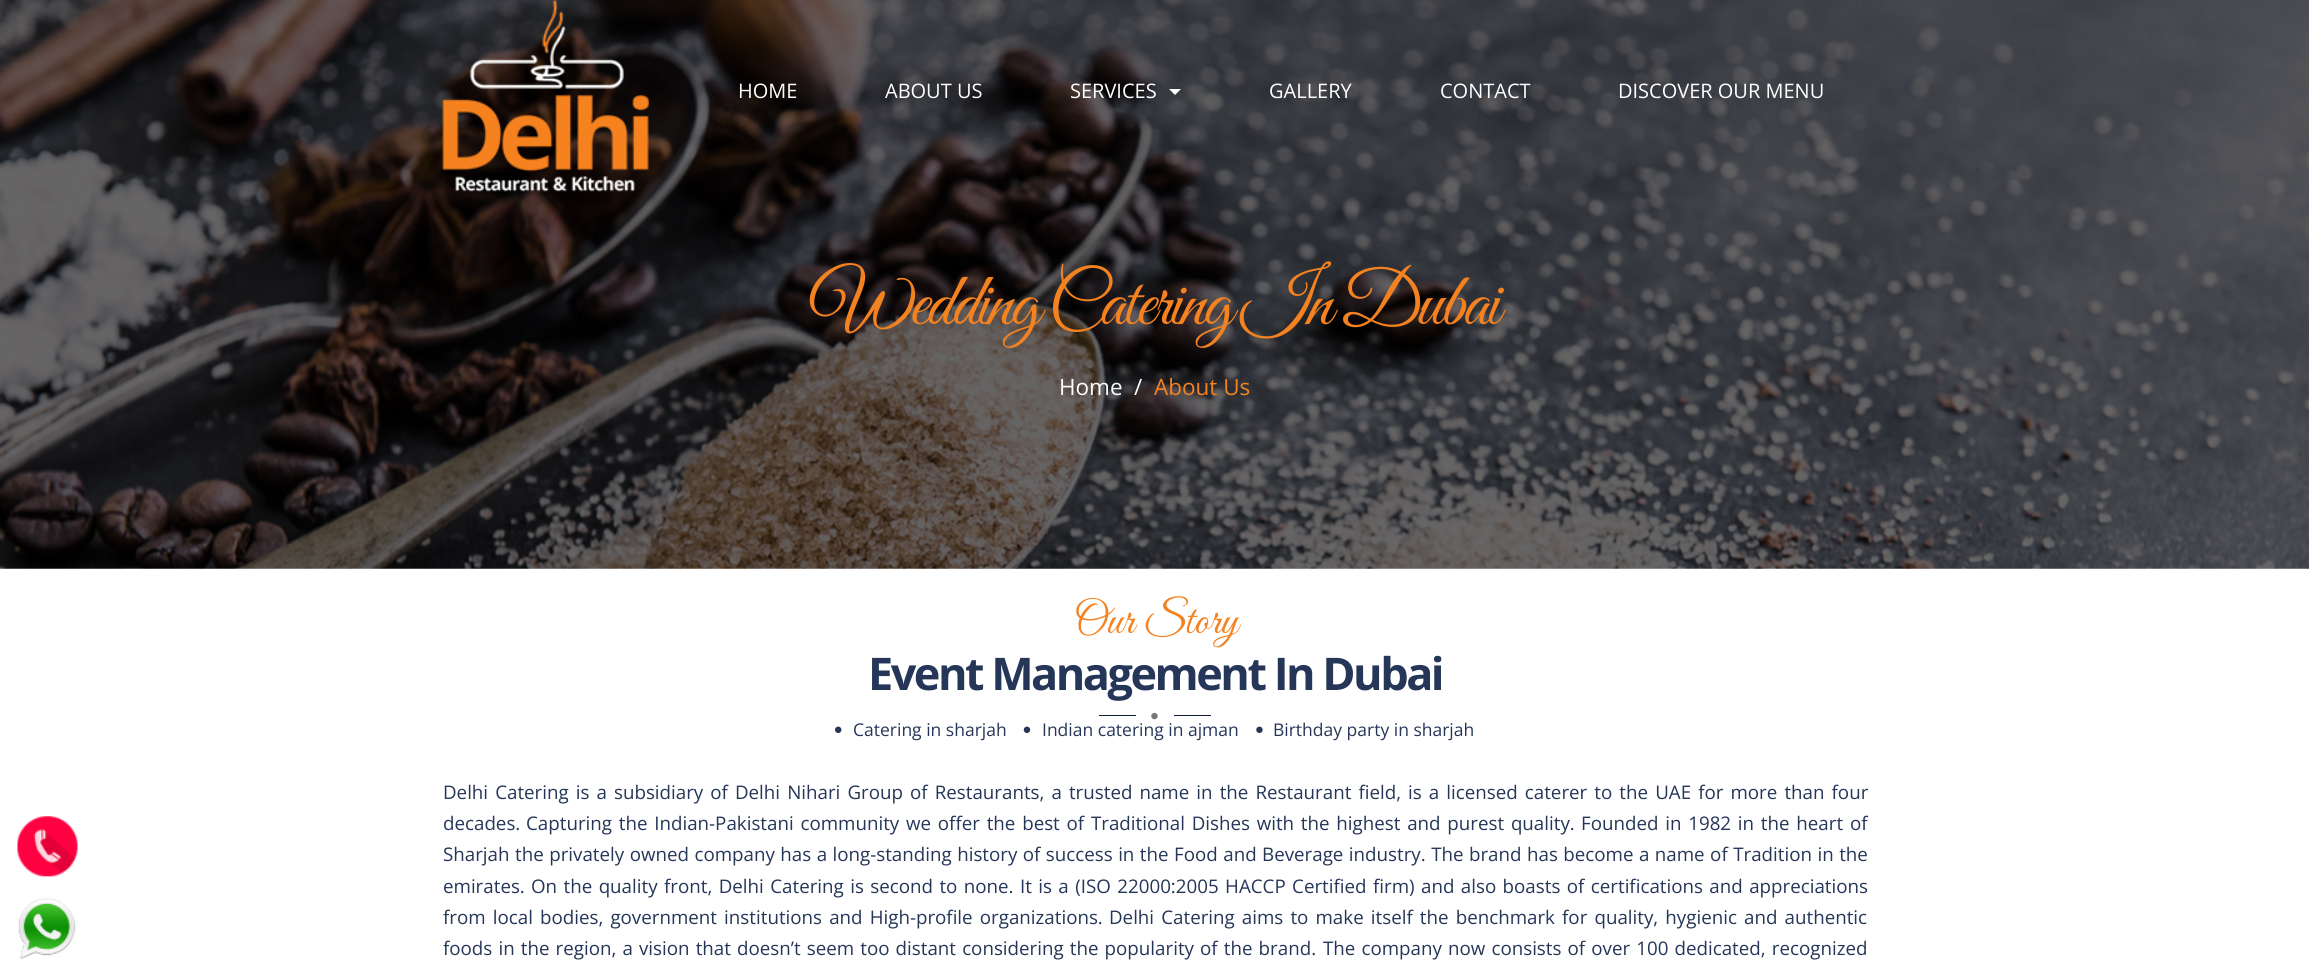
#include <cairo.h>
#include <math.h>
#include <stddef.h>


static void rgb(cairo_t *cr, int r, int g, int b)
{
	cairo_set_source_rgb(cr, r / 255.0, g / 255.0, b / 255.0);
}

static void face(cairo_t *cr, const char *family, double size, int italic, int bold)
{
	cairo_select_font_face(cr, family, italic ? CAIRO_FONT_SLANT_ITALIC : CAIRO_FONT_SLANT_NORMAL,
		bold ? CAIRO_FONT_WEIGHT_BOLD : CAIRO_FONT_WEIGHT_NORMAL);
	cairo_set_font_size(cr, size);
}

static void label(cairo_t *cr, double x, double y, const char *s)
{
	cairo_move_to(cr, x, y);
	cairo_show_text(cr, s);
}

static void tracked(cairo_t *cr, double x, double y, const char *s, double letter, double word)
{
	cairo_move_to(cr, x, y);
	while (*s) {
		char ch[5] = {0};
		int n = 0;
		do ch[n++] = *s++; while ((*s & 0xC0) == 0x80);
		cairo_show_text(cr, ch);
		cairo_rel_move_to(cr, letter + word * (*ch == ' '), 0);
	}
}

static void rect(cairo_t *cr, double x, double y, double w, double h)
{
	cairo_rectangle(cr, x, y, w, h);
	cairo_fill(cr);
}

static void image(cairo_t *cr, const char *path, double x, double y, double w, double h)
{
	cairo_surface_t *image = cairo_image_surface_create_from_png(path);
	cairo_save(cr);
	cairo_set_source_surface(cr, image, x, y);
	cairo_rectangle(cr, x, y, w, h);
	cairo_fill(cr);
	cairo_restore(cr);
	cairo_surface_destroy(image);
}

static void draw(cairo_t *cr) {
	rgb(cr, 255, 255, 255);
	cairo_paint(cr);
	image(cr, "image1.png", 0, 0, 2309, 569);
	image(cr, "image0.png", 442, 0, 207, 192);
	face(cr, "Open Sans", 20, 0, 0);
	rgb(cr, 255, 255, 255);
	label(cr, 738, 98, "HOME");
	label(cr, 885, 98, "ABOUT US");
	label(cr, 1070, 98, "SERVICES");
	cairo_new_path(cr);
	cairo_move_to(cr, 1169, 89);
	cairo_line_to(cr, 1181, 89);
	cairo_line_to(cr, 1175, 95);
	cairo_close_path(cr);
	cairo_fill(cr);
	label(cr, 1269, 98, "GALLERY");
	label(cr, 1440, 98, "CONTACT");
	label(cr, 1618, 98, "DISCOVER OUR MENU");
	face(cr, "Great Vibes", 75, 0, 0);
	rgb(cr, 245, 130, 32);
	tracked(cr, 811, 324, "Wedding Catering In Dubai", -2.5, 0);
	face(cr, "Open Sans", 22.5, 0, 0);
	rgb(cr, 255, 255, 255);
	label(cr, 1059, 395, "Home");
	label(cr, 1134, 395, "/");
	rgb(cr, 245, 130, 32);
	label(cr, 1154, 395, "About Us");
	image(cr, "image2.png", 17, 816, 61, 61);
	face(cr, "Great Vibes", 45, 0, 0);
	tracked(cr, 1074, 633, "Our Story", 0, 1.25);
	face(cr, "Open Sans", 45, 0, 1);
	rgb(cr, 37, 54, 88);
	tracked(cr, 868, 690, "Event Management In Dubai", -2.5, 0);
	rgb(cr, 11, 25, 54);
	rect(cr, 1099, 715, 37, 1);
	image(cr, "image3.png", 1151, 712, 7, 8);
	rect(cr, 1174, 715, 37, 1);
	image(cr, "image4.png", 835, 726, 7, 7);
	face(cr, "Open Sans", 17.5, 0, 0);
	rgb(cr, 37, 54, 88);
	label(cr, 853, 736, "Catering in sharjah");
	image(cr, "image5.png", 1023, 726, 8, 7);
	label(cr, 1042, 736, "Indian catering in ajman");
	image(cr, "image6.png", 1256, 726, 7, 7);
	label(cr, 1273, 736, "Birthday party in sharjah");
	face(cr, "Open Sans", 18.75, 0, 0);
	tracked(cr, 443, 799, "Delhi Catering is a subsidiary of Delhi Nihari Group of Restaurants, a trusted name in the Restaurant field, is a licensed caterer to the UAE for more than four", 0, 2.2);
	label(cr, 443, 830, "decades.");
	tracked(cr, 526, 830, "Capturing the Indian-Pakistani community we offer the best of Traditional Dishes with the highest and purest quality.", 0, 1.9);
	tracked(cr, 1581, 830, "Founded in 1982 in the heart of", 0, 1.9);
	tracked(cr, 443, 861, "Sharjah the privately owned company has a long-standing history of success in the Food and Beverage industry. The brand has become a name of Tradition in the", 0, 0.6);
	label(cr, 443, 893, "emirates.");
	tracked(cr, 531, 893, "On the quality front, Delhi Catering is second to none. It is a (ISO 22000:2005 HACCP Certified firm) and also boasts of certifications and appreciations", 0, 1.55);
	tracked(cr, 443, 924, "from local bodies, government institutions and High-profile organizations.", 0, 2.25);
	tracked(cr, 1109, 924, "Delhi Catering aims to make itself the benchmark for quality, hygienic and authentic", 0, 2.25);
	tracked(cr, 443, 955, "foods in the region, a vision that doesn’t seem too distant considering the popularity of the brand.", 0, 1.25);
	tracked(cr, 1323, 955, "The company now consists of over 100 dedicated, recognized", 0, 1.25);
	image(cr, "image7.png", 18, 897, 58, 62);
}

int main(void) {
	cairo_surface_t *surface = cairo_image_surface_create(CAIRO_FORMAT_RGB24, 2309, 969);
	cairo_t *cr = cairo_create(surface);
	cairo_font_options_t *options = cairo_font_options_create();
	cairo_font_options_set_hint_metrics(options, CAIRO_HINT_METRICS_OFF);
	cairo_font_options_set_hint_style(options, CAIRO_HINT_STYLE_NONE);
	cairo_set_font_options(cr, options);
	cairo_set_miter_limit(cr, 4);
	draw(cr);
	cairo_surface_write_to_png(surface, "render.png");
	cairo_font_options_destroy(options);
	cairo_destroy(cr);
	cairo_surface_destroy(surface);
	return 0;
}
